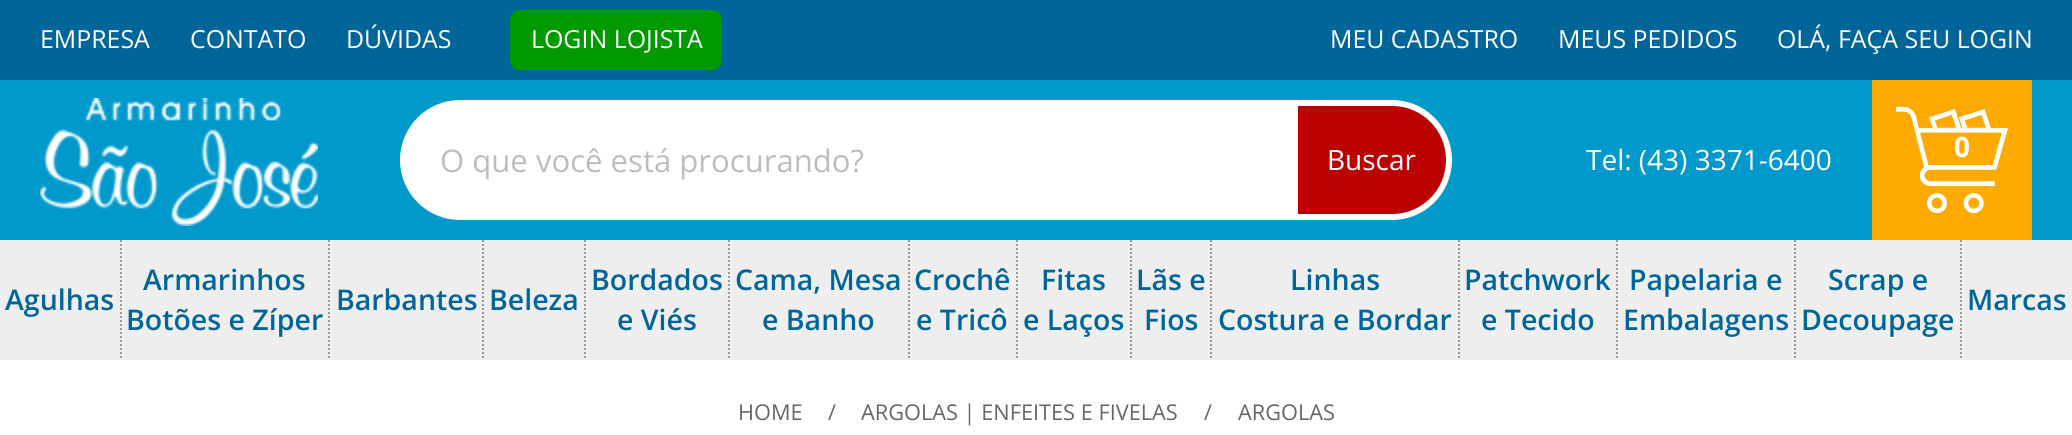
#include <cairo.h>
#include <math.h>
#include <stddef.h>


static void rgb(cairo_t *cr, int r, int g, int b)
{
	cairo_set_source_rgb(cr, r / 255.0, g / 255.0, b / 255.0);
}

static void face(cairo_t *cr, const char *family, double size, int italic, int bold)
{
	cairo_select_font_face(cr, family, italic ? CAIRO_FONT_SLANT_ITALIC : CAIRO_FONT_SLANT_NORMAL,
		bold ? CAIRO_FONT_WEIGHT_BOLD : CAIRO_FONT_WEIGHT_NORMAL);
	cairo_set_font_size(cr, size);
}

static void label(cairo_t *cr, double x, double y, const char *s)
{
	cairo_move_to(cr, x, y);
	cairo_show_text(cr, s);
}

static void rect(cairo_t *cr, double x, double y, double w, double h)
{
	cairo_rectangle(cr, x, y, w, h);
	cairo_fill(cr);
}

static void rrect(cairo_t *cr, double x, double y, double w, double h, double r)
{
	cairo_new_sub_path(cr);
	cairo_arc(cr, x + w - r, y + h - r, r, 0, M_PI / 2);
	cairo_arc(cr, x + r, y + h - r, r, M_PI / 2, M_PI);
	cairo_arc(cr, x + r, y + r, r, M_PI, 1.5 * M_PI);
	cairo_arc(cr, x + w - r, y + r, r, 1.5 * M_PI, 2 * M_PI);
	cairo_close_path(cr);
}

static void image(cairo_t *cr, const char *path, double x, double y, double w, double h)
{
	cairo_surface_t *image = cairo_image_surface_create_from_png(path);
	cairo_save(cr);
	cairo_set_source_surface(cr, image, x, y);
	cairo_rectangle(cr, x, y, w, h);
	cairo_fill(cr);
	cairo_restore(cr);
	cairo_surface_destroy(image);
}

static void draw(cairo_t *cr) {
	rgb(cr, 255, 255, 255);
	cairo_paint(cr);
	rgb(cr, 0, 153, 204);
	rect(cr, 0, 80, 2072, 160);
	rgb(cr, 0, 102, 153);
	rect(cr, 0, 0, 2072, 80);
	face(cr, "Open Sans", 24.9, 0, 0);
	rgb(cr, 255, 255, 255);
	label(cr, 40, 48, "EMPRESA");
	label(cr, 190, 48, "CONTATO");
	label(cr, 346, 48, "DÚVIDAS");
	rgb(cr, 0, 153, 0);
	rrect(cr, 510, 10, 212, 60, 10);
	cairo_fill(cr);
	rgb(cr, 255, 255, 255);
	label(cr, 531, 48, "LOGIN LOJISTA");
	label(cr, 1330, 48, "MEU CADASTRO");
	label(cr, 1558, 48, "MEUS PEDIDOS");
	label(cr, 1777, 48, "OLÁ, FAÇA SEU LOGIN");
	image(cr, "image0.png", 40, 98, 278, 128);
	rrect(cr, 400, 100, 1052, 120, 60);
	cairo_fill(cr);
	face(cr, "Open Sans", 31.1, 0, 0);
	rgb(cr, 189, 189, 189);
	label(cr, 440, 172, "O que você está procurando?");
	rgb(cr, 187, 0, 0);
	cairo_new_path(cr);
	cairo_move_to(cr, 1298, 106);
	cairo_line_to(cr, 1392, 106);
	cairo_curve_to(cr, 1422, 106, 1446, 130, 1446, 160);
	cairo_curve_to(cr, 1446, 190, 1422, 214, 1392, 214);
	cairo_line_to(cr, 1298, 214);
	cairo_close_path(cr);
	cairo_fill(cr);
	face(cr, "Open Sans", 28, 0, 0);
	rgb(cr, 255, 255, 255);
	label(cr, 1327, 170, "Buscar");
	label(cr, 1586, 170, "Tel: (43) 3371-6400");
	rgb(cr, 255, 170, 0);
	rect(cr, 1872, 80, 160, 160);
	image(cr, "image1.png", 1896, 106, 112, 108);
	face(cr, "Open Sans", 28, 0, 1);
	rgb(cr, 255, 255, 255);
	label(cr, 1954, 157, "0");
	rgb(cr, 238, 238, 238);
	rect(cr, 0, 240, 2072, 120);
	face(cr, "Open Sans SemiBold", 28.5, 0, 0);
	rgb(cr, 0, 102, 153);
	label(cr, 5, 310, "Agulhas");
	cairo_new_path(cr);
	cairo_move_to(cr, 121, 240);
	cairo_line_to(cr, 121, 360);
	rgb(cr, 153, 153, 153);
	cairo_set_dash(cr, (double[]){2, 2}, 2, 0);
	cairo_stroke(cr);
	rgb(cr, 0, 102, 153);
	label(cr, 143, 290, "Armarinhos");
	label(cr, 126, 330, "Botões e Zíper");
	cairo_new_path(cr);
	cairo_move_to(cr, 329, 240);
	cairo_line_to(cr, 329, 360);
	rgb(cr, 153, 153, 153);
	cairo_stroke(cr);
	rgb(cr, 0, 102, 153);
	label(cr, 336, 310, "Barbantes");
	cairo_new_path(cr);
	cairo_move_to(cr, 483, 240);
	cairo_line_to(cr, 483, 360);
	rgb(cr, 153, 153, 153);
	cairo_stroke(cr);
	rgb(cr, 0, 102, 153);
	label(cr, 489, 310, "Beleza");
	cairo_new_path(cr);
	cairo_move_to(cr, 585, 240);
	cairo_line_to(cr, 585, 360);
	rgb(cr, 153, 153, 153);
	cairo_stroke(cr);
	rgb(cr, 0, 102, 153);
	label(cr, 591, 290, "Bordados");
	label(cr, 617, 330, "e Viés");
	cairo_new_path(cr);
	cairo_move_to(cr, 729, 240);
	cairo_line_to(cr, 729, 360);
	rgb(cr, 153, 153, 153);
	cairo_stroke(cr);
	rgb(cr, 0, 102, 153);
	label(cr, 735, 290, "Cama, Mesa");
	label(cr, 762, 330, "e Banho");
	cairo_new_path(cr);
	cairo_move_to(cr, 909, 240);
	cairo_line_to(cr, 909, 360);
	rgb(cr, 153, 153, 153);
	cairo_stroke(cr);
	rgb(cr, 0, 102, 153);
	label(cr, 914, 290, "Crochê");
	label(cr, 916, 330, "e Tricô");
	cairo_new_path(cr);
	cairo_move_to(cr, 1017, 240);
	cairo_line_to(cr, 1017, 360);
	rgb(cr, 153, 153, 153);
	cairo_stroke(cr);
	rgb(cr, 0, 102, 153);
	label(cr, 1041, 290, "Fitas");
	label(cr, 1023, 330, "e Laços");
	cairo_new_path(cr);
	cairo_move_to(cr, 1131, 240);
	cairo_line_to(cr, 1131, 360);
	rgb(cr, 153, 153, 153);
	cairo_stroke(cr);
	rgb(cr, 0, 102, 153);
	label(cr, 1136, 290, "Lãs e");
	label(cr, 1144, 330, "Fios");
	cairo_new_path(cr);
	cairo_move_to(cr, 1211, 240);
	cairo_line_to(cr, 1211, 360);
	rgb(cr, 153, 153, 153);
	cairo_stroke(cr);
	rgb(cr, 0, 102, 153);
	label(cr, 1290, 290, "Linhas");
	label(cr, 1218, 330, "Costura e Bordar");
	cairo_new_path(cr);
	cairo_move_to(cr, 1459, 240);
	cairo_line_to(cr, 1459, 360);
	rgb(cr, 153, 153, 153);
	cairo_stroke(cr);
	rgb(cr, 0, 102, 153);
	label(cr, 1464, 290, "Patchwork");
	label(cr, 1481, 330, "e Tecido");
	cairo_new_path(cr);
	cairo_move_to(cr, 1617, 240);
	cairo_line_to(cr, 1617, 360);
	rgb(cr, 153, 153, 153);
	cairo_stroke(cr);
	rgb(cr, 0, 102, 153);
	label(cr, 1629, 290, "Papelaria e");
	label(cr, 1623, 330, "Embalagens");
	cairo_new_path(cr);
	cairo_move_to(cr, 1795, 240);
	cairo_line_to(cr, 1795, 360);
	rgb(cr, 153, 153, 153);
	cairo_stroke(cr);
	rgb(cr, 0, 102, 153);
	label(cr, 1828, 290, "Scrap e");
	label(cr, 1801, 330, "Decoupage");
	cairo_new_path(cr);
	cairo_move_to(cr, 1961, 240);
	cairo_line_to(cr, 1961, 360);
	rgb(cr, 153, 153, 153);
	cairo_stroke(cr);
	rgb(cr, 0, 102, 153);
	label(cr, 1967, 310, "Marcas");
	face(cr, "Open Sans", 21.75, 0, 0);
	rgb(cr, 102, 102, 102);
	label(cr, 738, 420, "HOME");
	label(cr, 828, 420, "/");
	label(cr, 861, 420, "ARGOLAS | ENFEITES E FIVELAS");
	label(cr, 1204, 420, "/");
	label(cr, 1238, 420, "ARGOLAS");
}

int main(void) {
	cairo_surface_t *surface = cairo_image_surface_create(CAIRO_FORMAT_RGB24, 2072, 435);
	cairo_t *cr = cairo_create(surface);
	cairo_font_options_t *options = cairo_font_options_create();
	cairo_font_options_set_hint_metrics(options, CAIRO_HINT_METRICS_OFF);
	cairo_font_options_set_hint_style(options, CAIRO_HINT_STYLE_NONE);
	cairo_set_font_options(cr, options);
	cairo_set_miter_limit(cr, 4);
	draw(cr);
	cairo_surface_write_to_png(surface, "render.png");
	cairo_font_options_destroy(options);
	cairo_destroy(cr);
	cairo_surface_destroy(surface);
	return 0;
}
